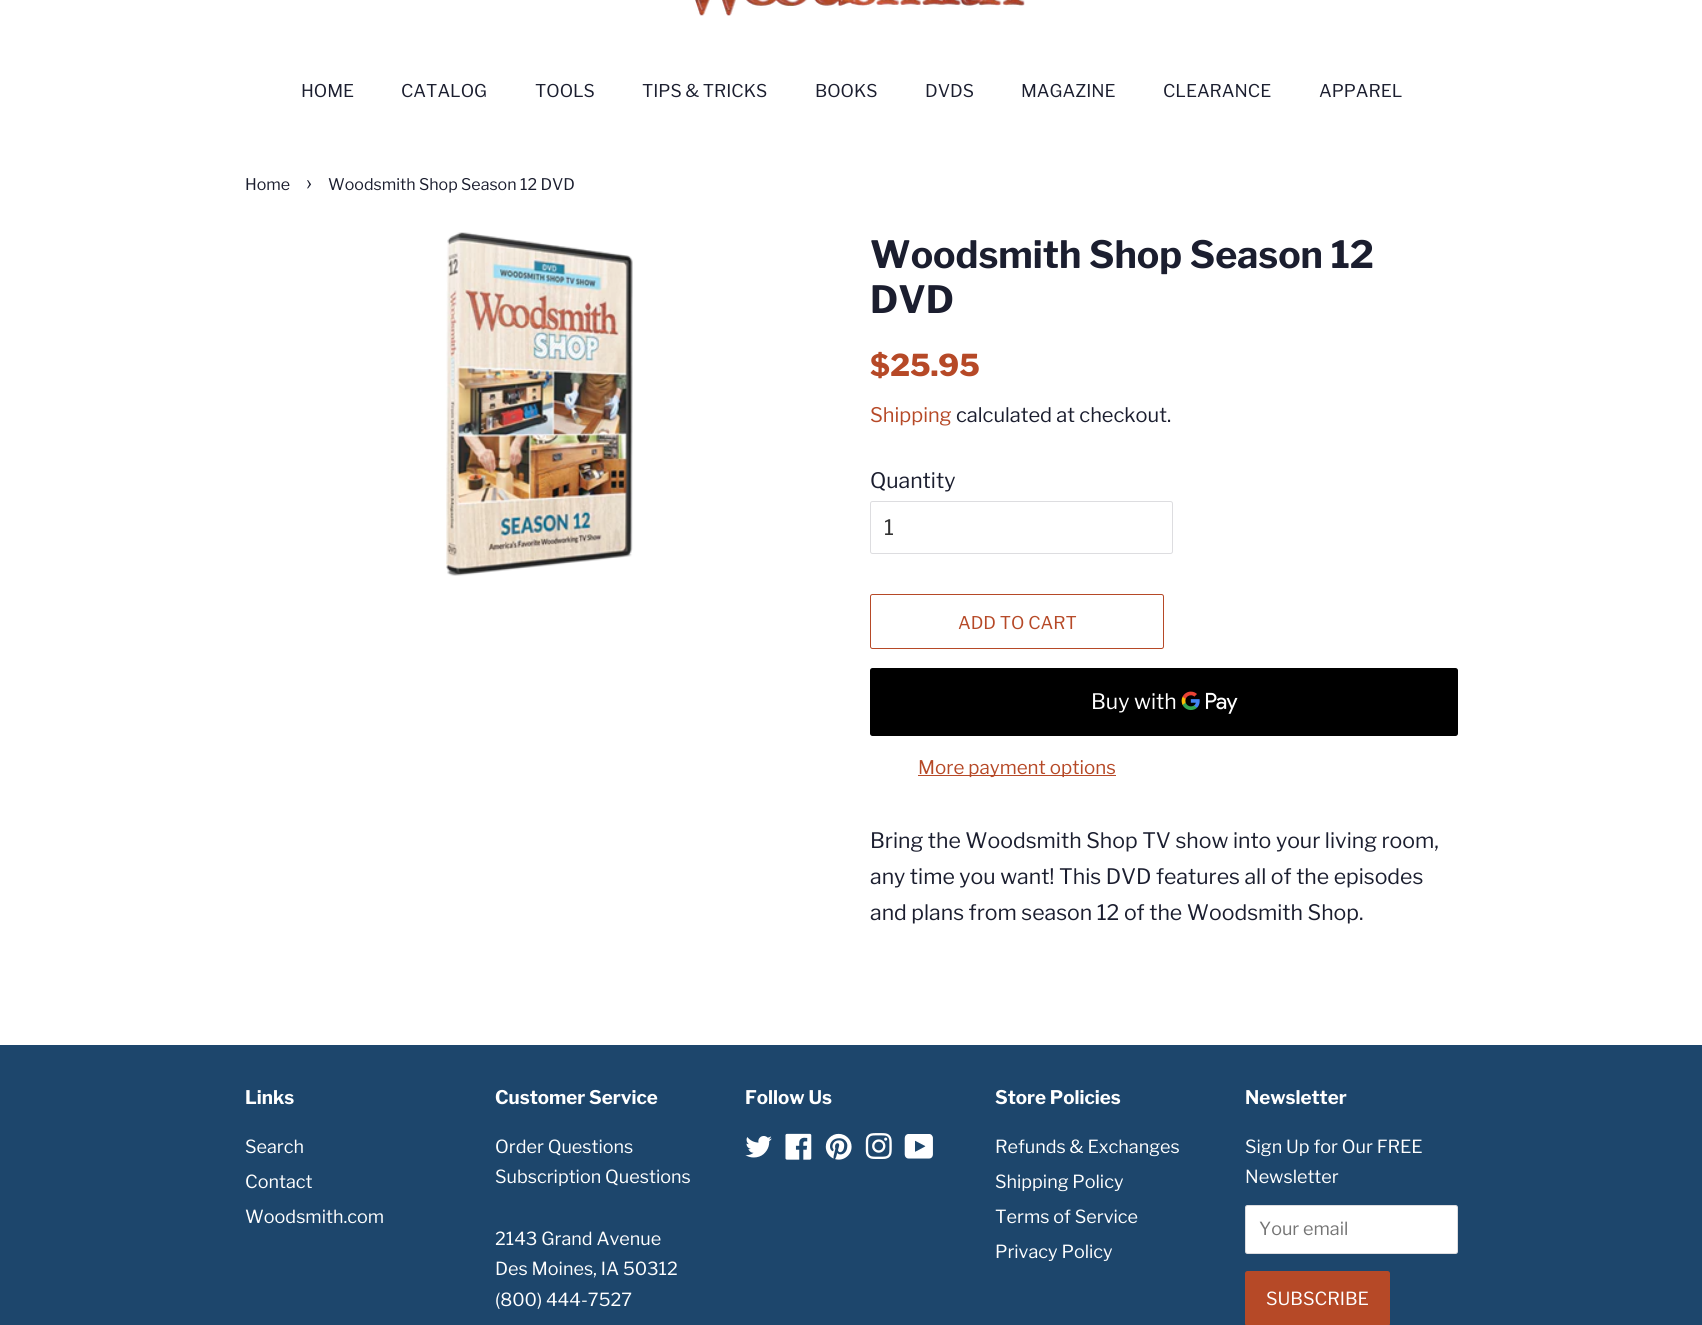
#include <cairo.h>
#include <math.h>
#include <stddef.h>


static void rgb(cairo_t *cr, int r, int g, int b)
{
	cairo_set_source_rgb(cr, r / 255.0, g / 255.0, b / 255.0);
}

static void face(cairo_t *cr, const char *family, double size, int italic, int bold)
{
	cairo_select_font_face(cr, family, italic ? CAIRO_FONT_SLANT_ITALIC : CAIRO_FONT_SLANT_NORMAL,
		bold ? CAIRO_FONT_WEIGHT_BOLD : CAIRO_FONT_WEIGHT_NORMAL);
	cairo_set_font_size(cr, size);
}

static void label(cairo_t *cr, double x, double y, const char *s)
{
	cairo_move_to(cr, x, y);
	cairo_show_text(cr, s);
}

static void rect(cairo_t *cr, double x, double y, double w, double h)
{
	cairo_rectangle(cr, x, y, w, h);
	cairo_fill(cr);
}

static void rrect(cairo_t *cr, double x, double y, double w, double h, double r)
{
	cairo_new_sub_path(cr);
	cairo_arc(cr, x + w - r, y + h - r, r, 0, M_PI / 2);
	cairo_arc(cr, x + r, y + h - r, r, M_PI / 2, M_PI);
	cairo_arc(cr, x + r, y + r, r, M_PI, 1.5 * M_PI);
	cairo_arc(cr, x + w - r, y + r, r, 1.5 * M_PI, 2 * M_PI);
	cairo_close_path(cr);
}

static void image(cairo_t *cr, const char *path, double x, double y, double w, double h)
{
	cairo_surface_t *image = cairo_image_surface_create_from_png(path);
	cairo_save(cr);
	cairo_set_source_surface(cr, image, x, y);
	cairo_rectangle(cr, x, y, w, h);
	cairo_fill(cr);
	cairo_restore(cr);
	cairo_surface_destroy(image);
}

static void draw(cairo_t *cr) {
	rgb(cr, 255, 255, 255);
	cairo_paint(cr);
	image(cr, "image0.png", 695, 0, 330, 16);
	face(cr, "Libre Franklin", 17.5, 0, 0);
	rgb(cr, 27, 30, 47);
	label(cr, 301, 97, "HOME");
	label(cr, 401, 97, "CATALOG");
	label(cr, 535, 97, "TOOLS");
	label(cr, 642, 97, "TIPS & TRICKS");
	label(cr, 815, 97, "BOOKS");
	label(cr, 925, 97, "DVDS");
	label(cr, 1021, 97, "MAGAZINE");
	label(cr, 1163, 97, "CLEARANCE");
	label(cr, 1319, 97, "APPAREL");
	face(cr, "Libre Franklin", 16, 0, 0);
	label(cr, 245, 190, "Home");
	face(cr, "Libre Franklin", 22, 0, 0);
	label(cr, 306, 190, "›");
	face(cr, "Libre Franklin", 16, 0, 0);
	label(cr, 328, 190, "Woodsmith Shop Season 12 DVD");
	image(cr, "image1.png", 446, 232, 187, 344);
	face(cr, "Libre Franklin", 37.5, 0, 1);
	label(cr, 870, 268, "Woodsmith Shop Season 12");
	label(cr, 870, 313, "DVD");
	face(cr, "Libre Franklin ExtraBold", 30, 0, 0);
	rgb(cr, 182, 73, 39);
	label(cr, 870, 376, "$25.95");
	face(cr, "Libre Franklin", 20, 0, 0);
	label(cr, 870, 422, "Shipping");
	rgb(cr, 27, 30, 47);
	label(cr, 956, 422, "calculated at checkout.");
	face(cr, "Libre Franklin", 21.25, 0, 0);
	label(cr, 870, 488, "Quantity");
	rrect(cr, 870.5, 501.5, 302, 52, 2);
	rgb(cr, 221, 221, 224);
	cairo_set_line_width(cr, 1);
	cairo_stroke(cr);
	rgb(cr, 51, 51, 51);
	label(cr, 884, 535, "1");
	rrect(cr, 870.5, 594.5, 293, 54, 2);
	rgb(cr, 182, 73, 39);
	cairo_stroke(cr);
	face(cr, "Libre Franklin", 17.5, 0, 0);
	label(cr, 958, 629, "ADD TO CART");
	rgb(cr, 0, 0, 0);
	rrect(cr, 870, 668, 588, 68, 2.5);
	cairo_fill(cr);
	face(cr, "Libre Franklin", 21.25, 0, 0);
	rgb(cr, 255, 255, 255);
	label(cr, 1091, 709, "Buy with");
	image(cr, "image2.png", 1181, 691, 57, 23);
	rgb(cr, 182, 73, 39);
	rect(cr, 918, 775, 198, 1);
	face(cr, "Libre Franklin", 18.75, 0, 0);
	label(cr, 918, 774, "More payment options");
	face(cr, "Libre Franklin", 21.25, 0, 0);
	rgb(cr, 27, 30, 47);
	label(cr, 870, 848, "Bring the Woodsmith Shop TV show into your living room,");
	label(cr, 870, 884, "any time you want! This DVD features all of the episodes");
	label(cr, 870, 920, "and plans from season 12 of the Woodsmith Shop.");
	rgb(cr, 29, 70, 108);
	rect(cr, 0, 1045, 1702, 280);
	face(cr, "Libre Franklin", 18.75, 0, 1);
	rgb(cr, 255, 255, 255);
	label(cr, 245, 1104, "Links");
	face(cr, "Libre Franklin", 18, 0, 0);
	label(cr, 245, 1153, "Search");
	label(cr, 245, 1188, "Contact");
	label(cr, 245, 1223, "Woodsmith.com");
	face(cr, "Libre Franklin", 18.75, 0, 1);
	label(cr, 495, 1104, "Customer Service");
	face(cr, "Libre Franklin", 18, 0, 0);
	label(cr, 495, 1153, "Order Questions");
	label(cr, 495, 1183, "Subscription Questions");
	label(cr, 495, 1245, "2143 Grand Avenue");
	label(cr, 495, 1275, "Des Moines, IA 50312");
	label(cr, 495, 1306, "(800) 444-7527");
	face(cr, "Libre Franklin", 18.75, 0, 1);
	label(cr, 745, 1104, "Follow Us");
	image(cr, "image3.png", 745, 1136, 27, 22);
	image(cr, "image4.png", 785, 1133, 27, 27);
	image(cr, "image5.png", 825, 1133, 27, 27);
	image(cr, "image6.png", 865, 1133, 27, 26);
	image(cr, "image7.png", 904, 1134, 29, 25);
	label(cr, 995, 1104, "Store Policies");
	face(cr, "Libre Franklin", 18, 0, 0);
	label(cr, 995, 1153, "Refunds & Exchanges");
	label(cr, 995, 1188, "Shipping Policy");
	label(cr, 995, 1223, "Terms of Service");
	label(cr, 995, 1258, "Privacy Policy");
	face(cr, "Libre Franklin", 18.75, 0, 1);
	label(cr, 1245, 1104, "Newsletter");
	face(cr, "Libre Franklin", 18, 0, 0);
	label(cr, 1245, 1153, "Sign Up for Our FREE");
	label(cr, 1245, 1183, "Newsletter");
	rrect(cr, 1245, 1205, 213, 49, 2.5);
	cairo_fill(cr);
	rrect(cr, 1245.5, 1205.5, 212, 48, 2);
	cairo_set_source_rgba(cr, 0.106, 0.118, 0.184, 0.15);
	cairo_stroke(cr);
	rgb(cr, 117, 117, 117);
	label(cr, 1259, 1235, "Your email");
	rgb(cr, 182, 73, 39);
	rrect(cr, 1245, 1271, 145, 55, 2.5);
	cairo_fill(cr);
	rgb(cr, 255, 255, 255);
	label(cr, 1266, 1305, "SUBSCRIBE");
}

int main(void) {
	cairo_surface_t *surface = cairo_image_surface_create(CAIRO_FORMAT_RGB24, 1702, 1325);
	cairo_t *cr = cairo_create(surface);
	cairo_font_options_t *options = cairo_font_options_create();
	cairo_font_options_set_hint_metrics(options, CAIRO_HINT_METRICS_OFF);
	cairo_font_options_set_hint_style(options, CAIRO_HINT_STYLE_NONE);
	cairo_set_font_options(cr, options);
	cairo_set_miter_limit(cr, 4);
	draw(cr);
	cairo_surface_write_to_png(surface, "render.png");
	cairo_font_options_destroy(options);
	cairo_destroy(cr);
	cairo_surface_destroy(surface);
	return 0;
}
